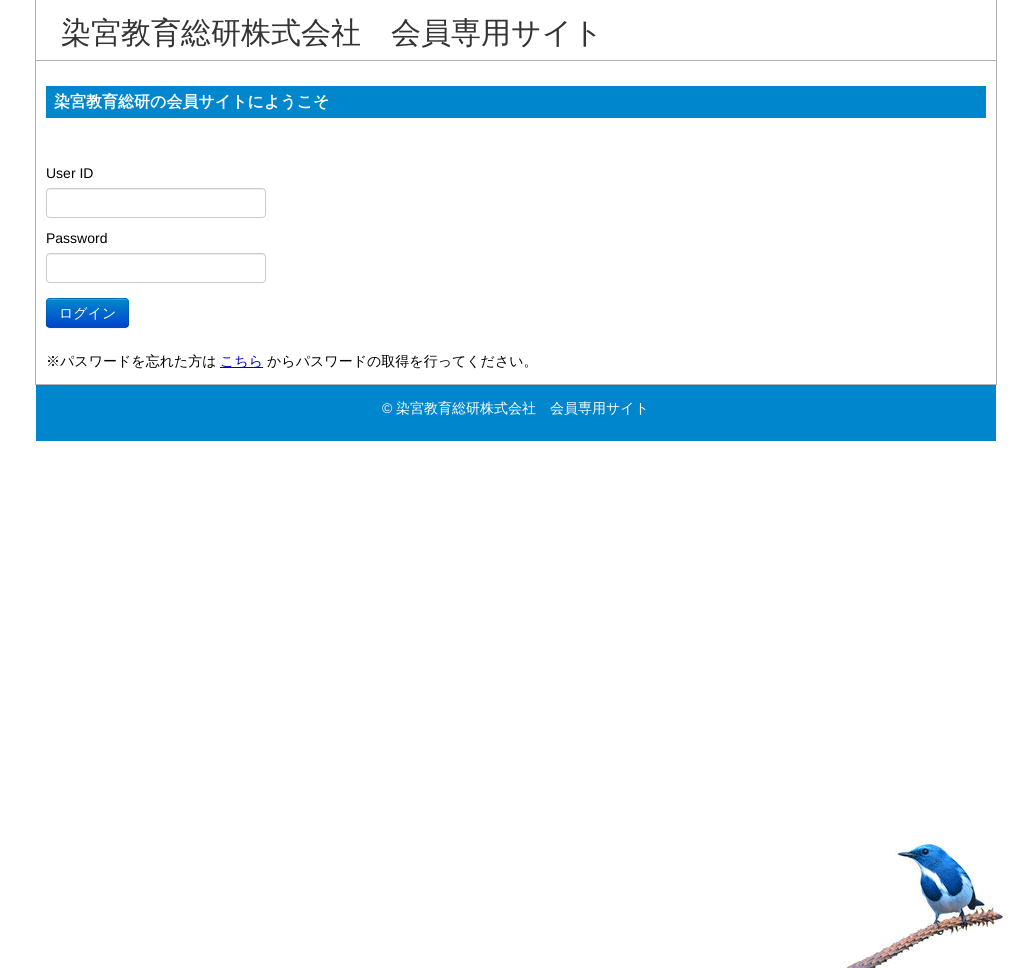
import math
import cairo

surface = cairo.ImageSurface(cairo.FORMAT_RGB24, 1031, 968)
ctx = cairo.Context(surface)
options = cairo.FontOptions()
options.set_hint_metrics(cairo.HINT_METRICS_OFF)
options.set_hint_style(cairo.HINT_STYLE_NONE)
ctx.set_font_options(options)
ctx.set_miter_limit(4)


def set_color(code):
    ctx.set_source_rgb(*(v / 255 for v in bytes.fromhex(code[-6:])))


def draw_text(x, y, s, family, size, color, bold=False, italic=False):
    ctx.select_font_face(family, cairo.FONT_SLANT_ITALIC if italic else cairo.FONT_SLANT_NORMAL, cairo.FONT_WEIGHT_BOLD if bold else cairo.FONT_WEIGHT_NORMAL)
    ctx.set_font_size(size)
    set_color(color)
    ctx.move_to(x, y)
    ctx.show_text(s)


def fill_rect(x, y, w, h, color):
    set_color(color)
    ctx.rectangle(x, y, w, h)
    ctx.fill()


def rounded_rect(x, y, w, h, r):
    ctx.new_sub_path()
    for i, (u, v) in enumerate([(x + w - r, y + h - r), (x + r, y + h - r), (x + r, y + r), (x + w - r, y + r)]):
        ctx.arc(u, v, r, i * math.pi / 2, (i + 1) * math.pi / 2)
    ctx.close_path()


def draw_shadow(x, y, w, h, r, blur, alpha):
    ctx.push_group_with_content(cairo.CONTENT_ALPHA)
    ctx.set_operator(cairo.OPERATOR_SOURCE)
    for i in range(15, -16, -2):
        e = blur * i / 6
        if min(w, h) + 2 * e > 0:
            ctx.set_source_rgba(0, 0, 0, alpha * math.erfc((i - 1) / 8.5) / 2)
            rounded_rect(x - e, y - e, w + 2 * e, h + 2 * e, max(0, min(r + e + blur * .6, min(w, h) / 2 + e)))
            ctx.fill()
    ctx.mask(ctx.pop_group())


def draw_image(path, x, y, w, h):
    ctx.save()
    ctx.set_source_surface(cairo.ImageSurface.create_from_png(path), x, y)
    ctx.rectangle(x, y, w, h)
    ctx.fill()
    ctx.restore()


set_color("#ffffff")
ctx.paint()
draw_image("assets/img1.png", 845, 840, 162, 128)
fill_rect(996, 0, 1, 60, "#b3b3b3")
fill_rect(35, 0, 1, 60, "#b3b3b3")
draw_text(61, 43, "染宮教育総研株式会社　会員専用サイト", "WenQuanYi Zen Hei Medium", 30, "#333333")
ctx.rectangle(35.5, 60.5, 961, 324)
set_color("#b3b3b3")
ctx.set_line_width(1)
ctx.stroke()
fill_rect(46, 86, 940, 32, "#0086cc")
draw_text(54, 107, "染宮教育総研の会員サイトにようこそ", "WenQuanYi Zen Hei", 16, "#ffffff", bold=True)
draw_text(46, 178, "User ID", "Liberation Sans", 14, "#000000")
set_color("#ececec")
ctx.new_path()
ctx.move_to(50, 190)
ctx.line_to(262, 190)
ctx.curve_to(264, 190, 265, 191, 265, 193)
ctx.line_to(265, 192)
ctx.curve_to(265, 190, 264, 189, 262, 189)
ctx.line_to(50, 189)
ctx.curve_to(48, 189, 47, 190, 47, 192)
ctx.line_to(47, 193)
ctx.curve_to(47, 191, 48, 190, 50, 190)
ctx.close_path()
ctx.fill()
rounded_rect(46.5, 188.5, 219, 29, 3.5)
set_color("#cccccc")
ctx.stroke()
draw_text(46, 243, "Password", "Liberation Sans", 14, "#000000")
set_color("#ececec")
ctx.new_path()
ctx.move_to(50, 255)
ctx.line_to(262, 255)
ctx.curve_to(264, 255, 265, 256, 265, 258)
ctx.line_to(265, 257)
ctx.curve_to(265, 255, 264, 254, 262, 254)
ctx.line_to(50, 254)
ctx.curve_to(48, 254, 47, 255, 47, 257)
ctx.line_to(47, 258)
ctx.curve_to(47, 256, 48, 255, 50, 255)
ctx.close_path()
ctx.fill()
rounded_rect(46.5, 253.5, 219, 29, 3.5)
set_color("#cccccc")
ctx.stroke()
set_color("#000000")
draw_shadow(46, 299, 83, 30, 4, 1, 0.05)
set_color("#006dcc")
rounded_rect(46, 298, 83, 30, 4)
ctx.fill()
ctx.save()
rounded_rect(46, 298, 83, 30, 4)
ctx.clip()
gradient = cairo.LinearGradient(88, 299, 88, 327)
gradient.add_color_stop_rgba(0, 0, 0.533, 0.8, 1)
gradient.add_color_stop_rgba(1, 0, 0.267, 0.8, 1)
ctx.set_source(gradient)
ctx.rectangle(46, 299, 83, 28)
ctx.fill()
ctx.restore()
ctx.set_source_rgba(1, 1, 1, 0.2)
ctx.new_path()
ctx.move_to(50, 300)
ctx.line_to(125, 300)
ctx.curve_to(127, 300, 128, 301, 128, 303)
ctx.curve_to(128, 296, 116, 299, 112, 299)
ctx.line_to(62, 299)
ctx.curve_to(59, 299, 47, 296, 47, 303)
ctx.curve_to(47, 301, 48, 300, 50, 300)
ctx.close_path()
ctx.fill()
ctx.new_path()
ctx.move_to(127.5, 326.5)
ctx.line_to(125.5, 327.5)
ctx.line_to(49.5, 327.5)
ctx.line_to(47.5, 326.5)
ctx.set_source_rgba(0, 0, 0, 0.25)
ctx.stroke()
ctx.new_path()
ctx.move_to(47.5, 326.5)
ctx.curve_to(45.5, 324.5, 46.5, 316, 46.5, 313)
ctx.curve_to(46.5, 296, 44.5, 298.5, 62.5, 298.5)
ctx.line_to(112.5, 298.5)
ctx.curve_to(130.5, 298.5, 128.5, 296, 128.5, 313)
ctx.curve_to(128.5, 316, 129.5, 324.5, 127.5, 326.5)
ctx.set_source_rgba(0, 0, 0, 0.1)
ctx.stroke()
draw_text(59, 318, "ログイン", "WenQuanYi Zen Hei Medium", 14, "#ffffff")
draw_text(46, 366, "※パスワードを忘れた方は", "WenQuanYi Zen Hei Medium", 14, "#000000")
fill_rect(220, 367, 43, 1, "#0000cc")
draw_text(220, 366, "こちら", "WenQuanYi Zen Hei Medium", 14, "#0000cc")
draw_text(267, 366, "からパスワードの取得を行ってください。", "WenQuanYi Zen Hei Medium", 14, "#000000")
fill_rect(36, 385, 960, 56, "#0086cc")
draw_text(382, 413, "©", "Liberation Sans", 14, "#ffffff")
draw_text(396, 413, "染宮教育総研株式会社　会員専用サイト", "WenQuanYi Zen Hei Medium", 14, "#ffffff")
surface.write_to_png("output.png")
